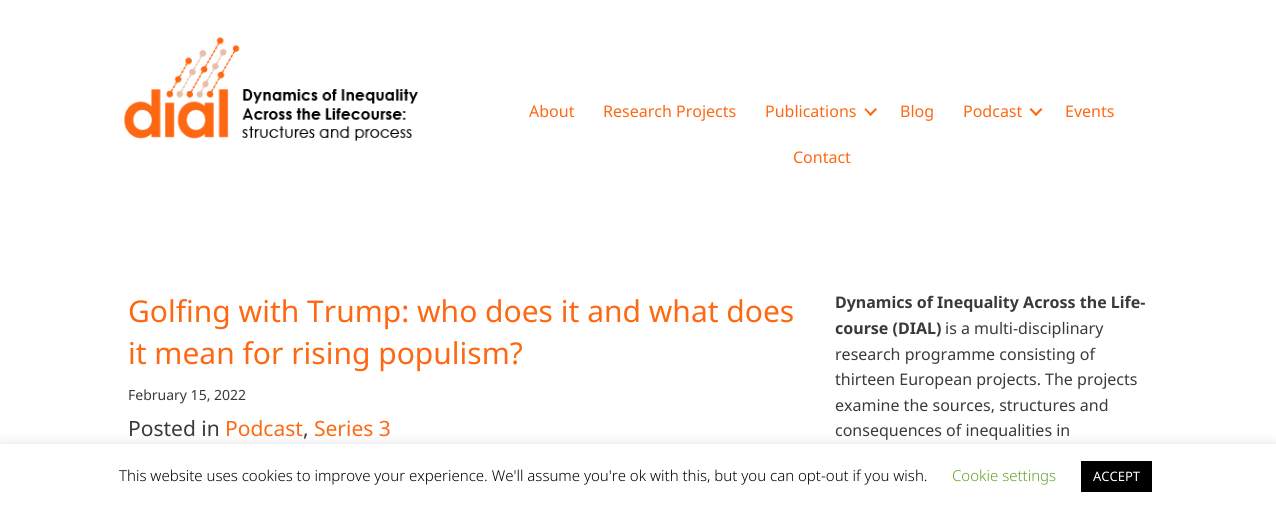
import math
import cairo

surface = cairo.ImageSurface(cairo.FORMAT_RGB24, 1276, 509)
ctx = cairo.Context(surface)
options = cairo.FontOptions()
options.set_hint_metrics(cairo.HINT_METRICS_OFF)
options.set_hint_style(cairo.HINT_STYLE_NONE)
ctx.set_font_options(options)
ctx.set_miter_limit(4)


def set_color(code):
    ctx.set_source_rgb(*(v / 255 for v in bytes.fromhex(code[-6:])))


def draw_text(x, y, s, family, size, color, bold=False, italic=False):
    ctx.select_font_face(family, cairo.FONT_SLANT_ITALIC if italic else cairo.FONT_SLANT_NORMAL, cairo.FONT_WEIGHT_BOLD if bold else cairo.FONT_WEIGHT_NORMAL)
    ctx.set_font_size(size)
    set_color(color)
    ctx.move_to(x, y)
    ctx.show_text(s)


def fill_rect(x, y, w, h, color):
    set_color(color)
    ctx.rectangle(x, y, w, h)
    ctx.fill()


def rounded_rect(x, y, w, h, r):
    ctx.new_sub_path()
    for i, (u, v) in enumerate([(x + w - r, y + h - r), (x + r, y + h - r), (x + r, y + r), (x + w - r, y + r)]):
        ctx.arc(u, v, r, i * math.pi / 2, (i + 1) * math.pi / 2)
    ctx.close_path()


def draw_shadow(x, y, w, h, r, blur, alpha):
    ctx.push_group_with_content(cairo.CONTENT_ALPHA)
    ctx.set_operator(cairo.OPERATOR_SOURCE)
    for i in range(15, -16, -2):
        e = blur * i / 6
        if min(w, h) + 2 * e > 0:
            ctx.set_source_rgba(0, 0, 0, alpha * math.erfc((i - 1) / 8.5) / 2)
            rounded_rect(x - e, y - e, w + 2 * e, h + 2 * e, max(0, min(r + e + blur * .6, min(w, h) / 2 + e)))
            ctx.fill()
    ctx.mask(ctx.pop_group())


def draw_image(path, x, y, w, h):
    ctx.save()
    ctx.set_source_surface(cairo.ImageSurface.create_from_png(path), x, y)
    ctx.rectangle(x, y, w, h)
    ctx.fill()
    ctx.restore()


set_color("#ffffff")
ctx.paint()
draw_image("assets/img1.png", 124, 37, 294, 104)
draw_text(529, 117, "About", "Noto Sans", 16, "#ff6812")
draw_text(603, 117, "Research Projects", "Noto Sans", 16, "#ff6812")
draw_text(765, 117, "Publications", "Noto Sans", 16, "#ff6812")
ctx.new_path()
ctx.move_to(875.5, 108)
ctx.line_to(877, 109.5)
ctx.line_to(870.5, 116)
ctx.line_to(869, 114.5)
ctx.close_path()
ctx.fill()
ctx.new_path()
ctx.move_to(865.5, 108)
ctx.line_to(872, 114.5)
ctx.line_to(870.5, 116)
ctx.line_to(864.5, 109.5)
ctx.close_path()
ctx.fill()
draw_text(900, 117, "Blog", "Noto Sans", 16, "#ff6812")
draw_text(963, 117, "Podcast", "Noto Sans", 16, "#ff6812")
ctx.new_path()
ctx.move_to(1041, 108)
ctx.line_to(1042.5, 109.5)
ctx.line_to(1036, 116)
ctx.line_to(1034.5, 114.5)
ctx.close_path()
ctx.fill()
ctx.new_path()
ctx.move_to(1031, 108)
ctx.line_to(1037.5, 114.5)
ctx.line_to(1036, 116)
ctx.line_to(1029.5, 109.5)
ctx.close_path()
ctx.fill()
draw_text(1065, 117, "Events", "Noto Sans", 16, "#ff6812")
draw_text(793, 163, "Contact", "Noto Sans", 16, "#ff6812")
draw_text(128, 322, "Golfing with Trump: who does it and what does", "Noto Sans", 30, "#ff6812")
draw_text(128, 364, "it mean for rising populism?", "Noto Sans", 30, "#ff6812")
draw_text(128, 400, "February 15, 2022", "Noto Sans", 14, "#3a3a3a")
draw_text(128, 436, "Posted in", "Noto Sans", 21, "#3a3a3a")
draw_text(225, 436, "Podcast", "Noto Sans", 21, "#ff6812")
draw_text(303, 436, ",", "Noto Sans", 21, "#3a3a3a")
draw_text(314, 436, "Series 3", "Noto Sans", 21, "#ff6812")
draw_text(835, 308, "Dynamics of Inequality Across the Life-", "Noto Sans", 16, "#3a3a3a", bold=True)
draw_text(835, 334, "course (DIAL)", "Noto Sans", 16, "#3a3a3a", bold=True)
draw_text(945, 334, "is a multi-disciplinary", "Noto Sans", 16, "#3a3a3a")
draw_text(835, 360, "research programme consisting of", "Noto Sans", 16, "#3a3a3a")
draw_text(835, 385, "thirteen European projects. The projects", "Noto Sans", 16, "#3a3a3a")
draw_text(835, 411, "examine the sources, structures and", "Noto Sans", 16, "#3a3a3a")
draw_text(835, 436, "consequences of inequalities in", "Noto Sans", 16, "#3a3a3a")
set_color("#acabab")
draw_shadow(0, 443, 1276, 65, 0, 5, 0.3)
fill_rect(0, 444, 1276, 65, "#ffffff")
draw_text(119, 481, "This website uses cookies to improve your experience. We'll assume you're ok with this, but you can opt-out if you wish.", "Noto Sans Light", 15, "#000000")
draw_text(952, 481, "Cookie settings", "Noto Sans Light", 15, "#62a329")
fill_rect(1081, 461, 71, 31, "#000000")
draw_text(1093, 481, "ACCEPT", "Noto Sans", 13, "#ffffff")
surface.write_to_png("output.png")
